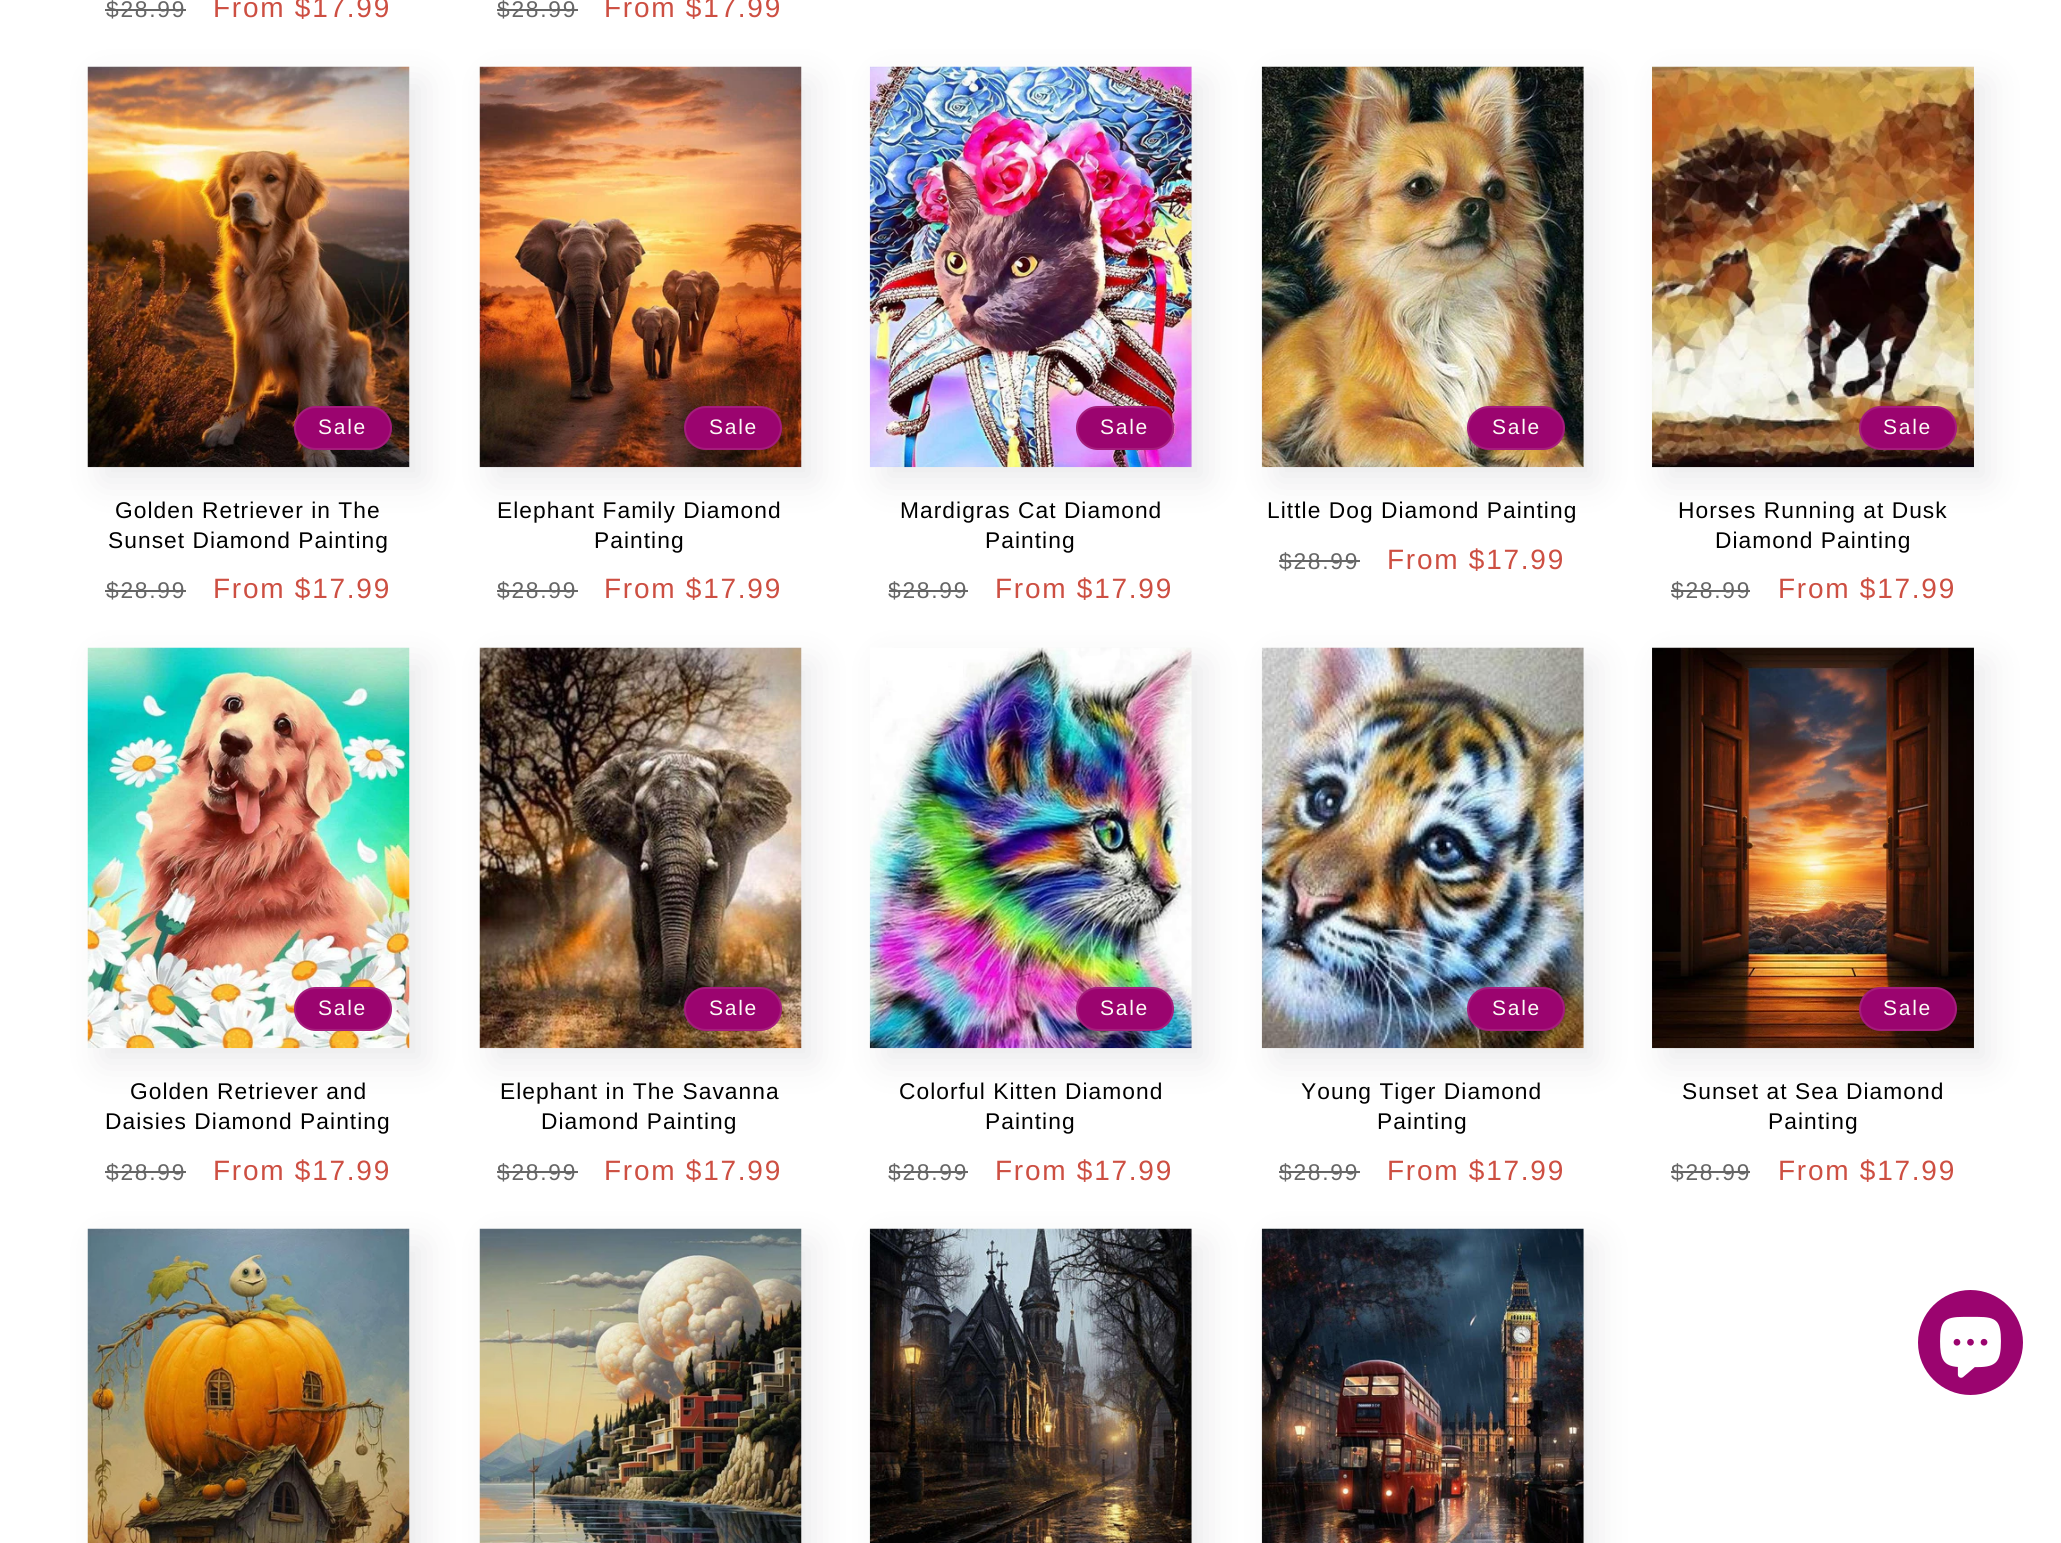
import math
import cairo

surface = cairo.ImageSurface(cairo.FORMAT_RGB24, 2061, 1543)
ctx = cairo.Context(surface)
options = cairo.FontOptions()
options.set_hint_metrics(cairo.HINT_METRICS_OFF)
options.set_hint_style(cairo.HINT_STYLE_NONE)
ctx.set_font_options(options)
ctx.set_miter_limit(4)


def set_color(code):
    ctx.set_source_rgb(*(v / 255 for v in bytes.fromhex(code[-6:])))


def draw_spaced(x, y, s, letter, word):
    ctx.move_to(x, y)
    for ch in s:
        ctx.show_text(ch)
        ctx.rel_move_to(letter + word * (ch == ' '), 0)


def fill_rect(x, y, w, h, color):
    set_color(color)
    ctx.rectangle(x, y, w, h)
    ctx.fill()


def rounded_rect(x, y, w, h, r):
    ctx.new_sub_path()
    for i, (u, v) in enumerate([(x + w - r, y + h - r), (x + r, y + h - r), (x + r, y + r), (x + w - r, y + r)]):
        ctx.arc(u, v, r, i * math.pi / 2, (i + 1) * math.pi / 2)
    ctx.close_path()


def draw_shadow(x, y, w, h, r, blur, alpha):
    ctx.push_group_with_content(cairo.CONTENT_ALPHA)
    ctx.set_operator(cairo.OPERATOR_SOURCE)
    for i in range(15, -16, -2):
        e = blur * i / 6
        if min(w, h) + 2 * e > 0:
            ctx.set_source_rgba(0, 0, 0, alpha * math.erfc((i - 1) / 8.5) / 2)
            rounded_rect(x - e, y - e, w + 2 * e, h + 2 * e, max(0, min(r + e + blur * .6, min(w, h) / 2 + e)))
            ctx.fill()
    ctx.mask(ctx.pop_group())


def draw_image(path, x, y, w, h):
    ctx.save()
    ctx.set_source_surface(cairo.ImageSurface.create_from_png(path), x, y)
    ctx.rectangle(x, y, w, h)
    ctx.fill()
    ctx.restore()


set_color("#ffffff")
ctx.paint()
ctx.select_font_face("Liberation Sans")
ctx.set_font_size(22.75)
set_color("#666666")
draw_spaced(106, 17, "$28.99", 1.75, 0)
fill_rect(105, 9, 81, 2, "#666666")
ctx.set_font_size(28)
set_color("#cd4f42")
draw_spaced(213, 17, "From $17.99", 1.75, 0)
ctx.set_font_size(22.75)
set_color("#666666")
draw_spaced(497, 17, "$28.99", 1.75, 0)
fill_rect(497, 9, 81, 2, "#666666")
ctx.set_font_size(28)
set_color("#cd4f42")
draw_spaced(604, 17, "From $17.99", 1.75, 0)
set_color("#2e2a39")
draw_shadow(102, 81, 322, 400, 0, 17.5, 0.1)
draw_image("assets/img1.png", 87, 66, 323, 402)
set_color("#9b046f")
rounded_rect(294, 406, 98, 44, 22)
ctx.fill()
rounded_rect(295, 407, 96, 42, 21)
ctx.set_source_rgba(0.992, 0.984, 0.969, 0.1)
ctx.stroke()
ctx.set_font_size(21)
set_color("#fdfbf7")
draw_spaced(318, 434, "Sale", 1.75, 0)
ctx.set_font_size(22.75)
set_color("#000000")
draw_spaced(115, 518, "Golden Retriever in The", 1.05, 0)
draw_spaced(108, 548, "Sunset Diamond Painting", 1.05, 0)
set_color("#666666")
draw_spaced(106, 598, "$28.99", 1.75, 0)
fill_rect(105, 590, 81, 2, "#666666")
ctx.set_font_size(28)
set_color("#cd4f42")
draw_spaced(213, 598, "From $17.99", 1.75, 0)
set_color("#2e2a39")
draw_shadow(494, 81, 320, 400, 0, 17.5, 0.1)
draw_image("assets/img2.png", 479, 66, 323, 402)
set_color("#9b046f")
rounded_rect(684, 406, 98, 44, 22)
ctx.fill()
rounded_rect(685, 407, 96, 42, 21)
ctx.set_source_rgba(0.992, 0.984, 0.969, 0.1)
ctx.stroke()
ctx.set_font_size(21)
set_color("#fdfbf7")
draw_spaced(709, 434, "Sale", 1.75, 0)
ctx.set_font_size(22.75)
set_color("#000000")
draw_spaced(497, 518, "Elephant Family Diamond", 1.05, 0)
draw_spaced(594, 548, "Painting", 1.05, 0)
set_color("#666666")
draw_spaced(497, 598, "$28.99", 1.75, 0)
fill_rect(497, 590, 81, 2, "#666666")
ctx.set_font_size(28)
set_color("#cd4f42")
draw_spaced(604, 598, "From $17.99", 1.75, 0)
set_color("#2e2a39")
draw_shadow(884, 81, 322, 400, 0, 17.5, 0.1)
draw_image("assets/img3.png", 869, 66, 323, 402)
set_color("#9b046f")
rounded_rect(1076, 406, 98, 44, 22)
ctx.fill()
rounded_rect(1077, 407, 96, 42, 21)
ctx.set_source_rgba(0.992, 0.984, 0.969, 0.1)
ctx.stroke()
ctx.set_font_size(21)
set_color("#fdfbf7")
draw_spaced(1100, 434, "Sale", 1.75, 0)
ctx.set_font_size(22.75)
set_color("#000000")
draw_spaced(900, 518, "Mardigras Cat Diamond", 1.05, 0)
draw_spaced(985, 548, "Painting", 1.05, 0)
set_color("#666666")
draw_spaced(888, 598, "$28.99", 1.75, 0)
fill_rect(889, 590, 79, 2, "#666666")
ctx.set_font_size(28)
set_color("#cd4f42")
draw_spaced(995, 598, "From $17.99", 1.75, 0)
set_color("#2e2a39")
draw_shadow(1276, 81, 320, 400, 0, 17.5, 0.1)
draw_image("assets/img4.png", 1261, 66, 323, 402)
set_color("#9b046f")
rounded_rect(1467, 406, 98, 44, 22)
ctx.fill()
rounded_rect(1468, 407, 96, 42, 21)
ctx.set_source_rgba(0.992, 0.984, 0.969, 0.1)
ctx.stroke()
ctx.set_font_size(21)
set_color("#fdfbf7")
draw_spaced(1492, 434, "Sale", 1.75, 0)
ctx.set_font_size(22.75)
set_color("#000000")
draw_spaced(1267, 518, "Little Dog Diamond Painting", 1.05, 0)
set_color("#666666")
draw_spaced(1279, 569, "$28.99", 1.75, 0)
fill_rect(1279, 560, 81, 2, "#666666")
ctx.set_font_size(28)
set_color("#cd4f42")
draw_spaced(1387, 569, "From $17.99", 1.75, 0)
set_color("#2e2a39")
draw_shadow(1666, 81, 322, 400, 0, 17.5, 0.1)
draw_image("assets/img5.png", 1652, 66, 322, 402)
set_color("#9b046f")
rounded_rect(1859, 406, 98, 44, 22)
ctx.fill()
rounded_rect(1860, 407, 96, 42, 21)
ctx.set_source_rgba(0.992, 0.984, 0.969, 0.1)
ctx.stroke()
ctx.set_font_size(21)
set_color("#fdfbf7")
draw_spaced(1883, 434, "Sale", 1.75, 0)
ctx.set_font_size(22.75)
set_color("#000000")
draw_spaced(1678, 518, "Horses Running at Dusk", 1.05, 0)
draw_spaced(1715, 548, "Diamond Painting", 1.05, 0)
set_color("#666666")
draw_spaced(1671, 598, "$28.99", 1.75, 0)
fill_rect(1671, 590, 79, 2, "#666666")
ctx.set_font_size(28)
set_color("#cd4f42")
draw_spaced(1778, 598, "From $17.99", 1.75, 0)
set_color("#2e2a39")
draw_shadow(102, 662, 322, 400, 0, 17.5, 0.1)
draw_image("assets/img6.png", 87, 647, 323, 402)
set_color("#9b046f")
rounded_rect(294, 987, 98, 44, 22)
ctx.fill()
rounded_rect(295, 988, 96, 42, 21)
ctx.set_source_rgba(0.992, 0.984, 0.969, 0.1)
ctx.stroke()
ctx.set_font_size(21)
set_color("#fdfbf7")
draw_spaced(318, 1015, "Sale", 1.75, 0)
ctx.set_font_size(22.75)
set_color("#000000")
draw_spaced(130, 1099, "Golden Retriever and", 1.05, 0)
draw_spaced(105, 1129, "Daisies Diamond Painting", 1.05, 0)
set_color("#666666")
draw_spaced(106, 1180, "$28.99", 1.75, 0)
fill_rect(105, 1171, 81, 2, "#666666")
ctx.set_font_size(28)
set_color("#cd4f42")
draw_spaced(213, 1180, "From $17.99", 1.75, 0)
set_color("#2e2a39")
draw_shadow(494, 662, 320, 400, 0, 17.5, 0.1)
draw_image("assets/img7.png", 479, 647, 323, 402)
set_color("#9b046f")
rounded_rect(684, 987, 98, 44, 22)
ctx.fill()
rounded_rect(685, 988, 96, 42, 21)
ctx.set_source_rgba(0.992, 0.984, 0.969, 0.1)
ctx.stroke()
ctx.set_font_size(21)
set_color("#fdfbf7")
draw_spaced(709, 1015, "Sale", 1.75, 0)
ctx.set_font_size(22.75)
set_color("#000000")
draw_spaced(500, 1099, "Elephant in The Savanna", 1.05, 0)
draw_spaced(541, 1129, "Diamond Painting", 1.05, 0)
set_color("#666666")
draw_spaced(497, 1180, "$28.99", 1.75, 0)
fill_rect(497, 1171, 81, 2, "#666666")
ctx.set_font_size(28)
set_color("#cd4f42")
draw_spaced(604, 1180, "From $17.99", 1.75, 0)
set_color("#2e2a39")
draw_shadow(884, 662, 322, 400, 0, 17.5, 0.1)
draw_image("assets/img8.png", 869, 647, 323, 402)
set_color("#9b046f")
rounded_rect(1076, 987, 98, 44, 22)
ctx.fill()
rounded_rect(1077, 988, 96, 42, 21)
ctx.set_source_rgba(0.992, 0.984, 0.969, 0.1)
ctx.stroke()
ctx.set_font_size(21)
set_color("#fdfbf7")
draw_spaced(1100, 1015, "Sale", 1.75, 0)
ctx.set_font_size(22.75)
set_color("#000000")
draw_spaced(899, 1099, "Colorful Kitten Diamond", 1.05, 0)
draw_spaced(985, 1129, "Painting", 1.05, 0)
set_color("#666666")
draw_spaced(888, 1180, "$28.99", 1.75, 0)
fill_rect(889, 1171, 79, 2, "#666666")
ctx.set_font_size(28)
set_color("#cd4f42")
draw_spaced(995, 1180, "From $17.99", 1.75, 0)
set_color("#2e2a39")
draw_shadow(1276, 662, 320, 400, 0, 17.5, 0.1)
draw_image("assets/img9.png", 1261, 647, 323, 402)
set_color("#9b046f")
rounded_rect(1467, 987, 98, 44, 22)
ctx.fill()
rounded_rect(1468, 988, 96, 42, 21)
ctx.set_source_rgba(0.992, 0.984, 0.969, 0.1)
ctx.stroke()
ctx.set_font_size(21)
set_color("#fdfbf7")
draw_spaced(1492, 1015, "Sale", 1.75, 0)
ctx.set_font_size(22.75)
set_color("#000000")
draw_spaced(1301, 1099, "Young Tiger Diamond", 1.05, 0)
draw_spaced(1377, 1129, "Painting", 1.05, 0)
set_color("#666666")
draw_spaced(1279, 1180, "$28.99", 1.75, 0)
fill_rect(1279, 1171, 81, 2, "#666666")
ctx.set_font_size(28)
set_color("#cd4f42")
draw_spaced(1387, 1180, "From $17.99", 1.75, 0)
set_color("#2e2a39")
draw_shadow(1666, 662, 322, 400, 0, 17.5, 0.1)
draw_image("assets/img10.png", 1652, 647, 322, 402)
set_color("#9b046f")
rounded_rect(1859, 987, 98, 44, 22)
ctx.fill()
rounded_rect(1860, 988, 96, 42, 21)
ctx.set_source_rgba(0.992, 0.984, 0.969, 0.1)
ctx.stroke()
ctx.set_font_size(21)
set_color("#fdfbf7")
draw_spaced(1883, 1015, "Sale", 1.75, 0)
ctx.set_font_size(22.75)
set_color("#000000")
draw_spaced(1682, 1099, "Sunset at Sea Diamond", 1.05, 0)
draw_spaced(1768, 1129, "Painting", 1.05, 0)
set_color("#666666")
draw_spaced(1671, 1180, "$28.99", 1.75, 0)
fill_rect(1671, 1171, 79, 2, "#666666")
ctx.set_font_size(28)
set_color("#cd4f42")
draw_spaced(1778, 1180, "From $17.99", 1.75, 0)
set_color("#2e2a39")
draw_shadow(102, 1243, 322, 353, 0, 17.5, 0.1)
draw_image("assets/img11.png", 87, 1228, 323, 315)
draw_shadow(494, 1243, 320, 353, 0, 17.5, 0.1)
draw_image("assets/img12.png", 479, 1228, 323, 315)
draw_shadow(884, 1243, 322, 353, 0, 17.5, 0.1)
draw_image("assets/img13.png", 869, 1228, 323, 315)
draw_shadow(1276, 1243, 320, 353, 0, 17.5, 0.1)
draw_image("assets/img14.png", 1261, 1228, 323, 315)
set_color("#9b046f")
ctx.arc(1970.5, 1342.5, 52.5, 0, 2 * math.pi)
ctx.fill()
draw_image("assets/img15.png", 1940, 1316, 61, 62)
surface.write_to_png("output.png")
